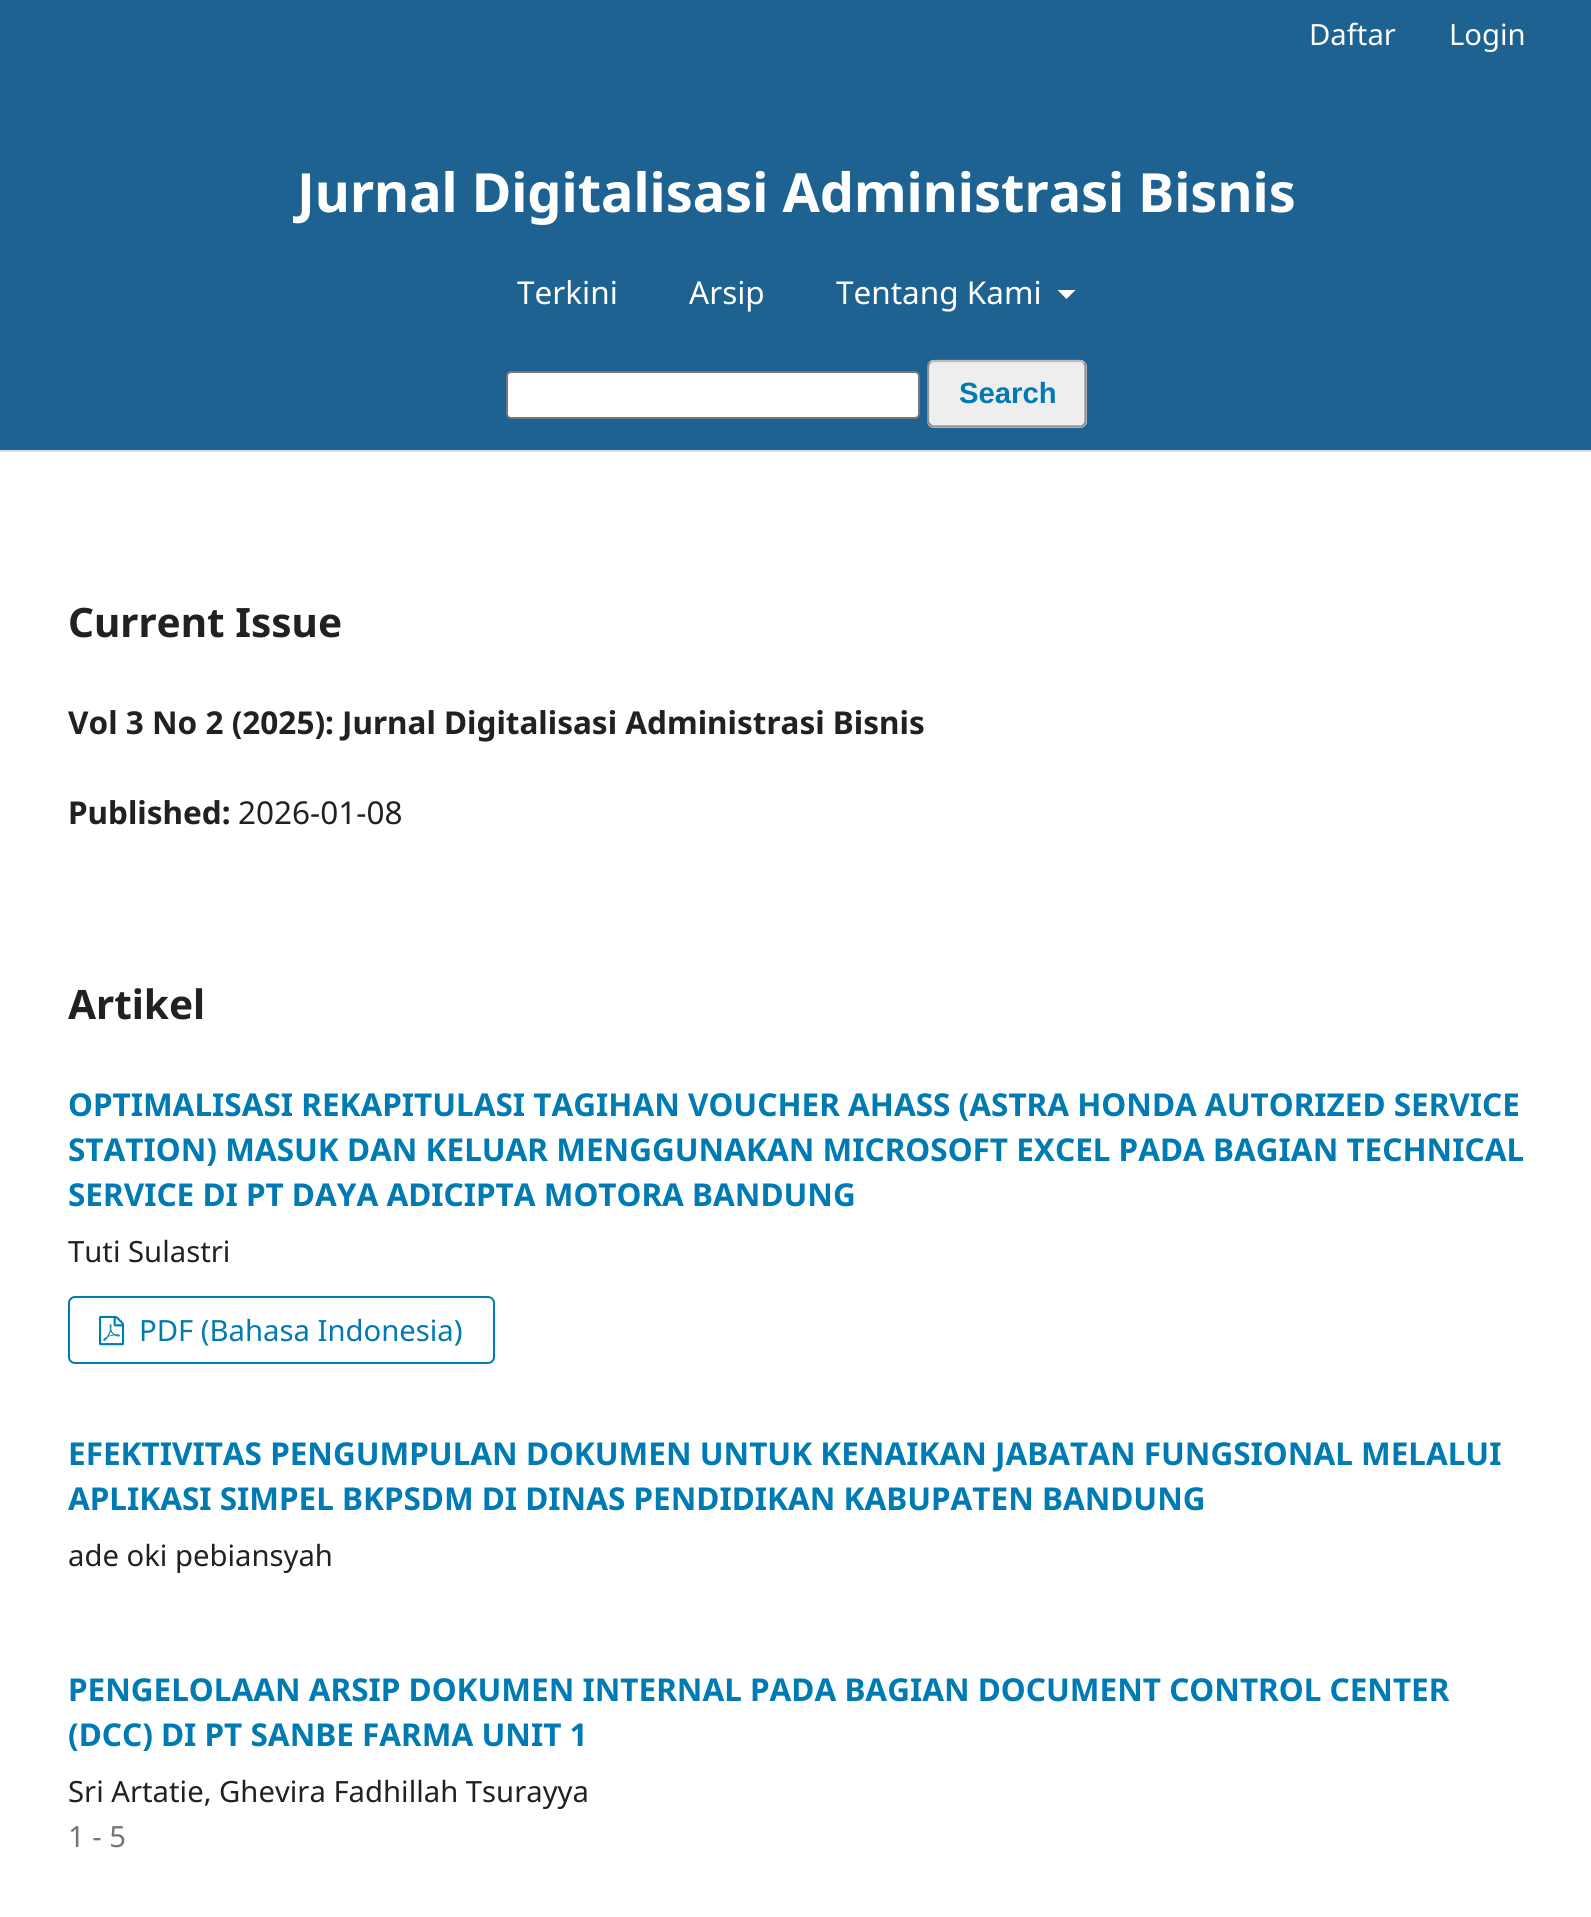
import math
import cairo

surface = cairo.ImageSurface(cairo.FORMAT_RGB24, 1591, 1917)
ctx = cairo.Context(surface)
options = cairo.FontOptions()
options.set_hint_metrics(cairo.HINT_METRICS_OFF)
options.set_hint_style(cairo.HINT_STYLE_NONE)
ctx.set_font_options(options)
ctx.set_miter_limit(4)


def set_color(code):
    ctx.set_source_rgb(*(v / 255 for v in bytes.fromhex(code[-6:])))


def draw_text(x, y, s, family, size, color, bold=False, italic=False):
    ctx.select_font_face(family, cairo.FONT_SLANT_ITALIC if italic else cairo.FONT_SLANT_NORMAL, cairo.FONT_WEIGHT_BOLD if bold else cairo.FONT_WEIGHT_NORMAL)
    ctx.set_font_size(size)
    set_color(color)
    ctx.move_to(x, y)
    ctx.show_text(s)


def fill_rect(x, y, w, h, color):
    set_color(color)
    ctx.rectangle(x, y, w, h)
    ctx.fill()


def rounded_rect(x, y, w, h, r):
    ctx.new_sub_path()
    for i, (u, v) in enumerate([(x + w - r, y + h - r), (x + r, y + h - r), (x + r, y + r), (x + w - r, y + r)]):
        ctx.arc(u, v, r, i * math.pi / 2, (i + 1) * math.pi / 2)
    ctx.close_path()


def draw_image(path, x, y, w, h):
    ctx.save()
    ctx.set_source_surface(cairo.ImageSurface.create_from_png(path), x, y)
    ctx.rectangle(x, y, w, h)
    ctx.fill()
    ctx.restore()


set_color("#ffffff")
ctx.paint()
fill_rect(0, 0, 1591, 450, "#1e6292")
fill_rect(0, 450, 1591, 2, "#dddddd")
draw_text(1309, 45, "Daftar", "Noto Sans", 29.25, "#ffffff")
draw_text(1449, 45, "Login", "Noto Sans", 29.25, "#ffffff")
draw_text(297, 212, "Jurnal Digitalisasi Administrasi Bisnis", "Noto Sans", 54, "#ffffff", bold=True)
draw_text(517, 304, "Terkini", "Noto Sans", 31.5, "#ffffff")
draw_text(689, 304, "Arsip", "Noto Sans", 31.5, "#ffffff")
draw_text(836, 304, "Tentang Kami", "Noto Sans", 31.5, "#ffffff")
ctx.new_path()
ctx.move_to(1057.5, 290)
ctx.line_to(1075.5, 290)
ctx.line_to(1066.5, 299)
ctx.close_path()
ctx.fill()
rounded_rect(507, 372, 412, 46, 4)
ctx.fill_preserve()
set_color("#767676")
ctx.stroke()
set_color("#eeeeee")
rounded_rect(927, 360, 160, 68, 7)
ctx.fill()
ctx.new_path()
ctx.move_to(930, 363)
ctx.curve_to(931, 361.5, 932.5, 361, 934, 361)
ctx.line_to(1080, 361)
ctx.curve_to(1081.5, 361, 1083, 361.5, 1084, 363)
set_color("#bbbbbb")
ctx.set_line_width(2.2)
ctx.stroke()
ctx.new_path()
ctx.move_to(1084, 363)
ctx.curve_to(1085, 364, 1085.5, 365.5, 1085.5, 367)
ctx.line_to(1085.5, 421)
ctx.curve_to(1085.5, 422, 1085, 423.5, 1084, 424.5)
ctx.curve_to(1083, 426, 1081.5, 426.5, 1080, 426.5)
ctx.line_to(934, 426.5)
ctx.curve_to(932.5, 426.5, 931, 426, 930, 424.5)
ctx.curve_to(928.5, 423.5, 928, 422, 928, 421)
ctx.line_to(928, 367)
ctx.curve_to(928, 365.5, 928.5, 364, 930, 363)
ctx.set_source_rgba(0, 0, 0, 0.4)
ctx.stroke()
draw_text(959, 403, "Search", "Liberation Sans", 29.25, "#007ab2", bold=True)
draw_text(68, 637, "Current Issue", "Noto Sans", 40.5, "#212121", bold=True)
draw_text(68, 734, "Vol 3 No 2 (2025): Jurnal Digitalisasi Administrasi Bisnis", "Noto Sans", 31.5, "#212121", bold=True)
draw_text(68, 824, "Published:", "Noto Sans", 31.5, "#212121", bold=True)
draw_text(238, 824, "2026-01-08", "Noto Sans", 31.5, "#212121")
draw_text(68, 1019, "Artikel", "Noto Sans", 40.5, "#212121", bold=True)
draw_text(68, 1116, "OPTIMALISASI REKAPITULASI TAGIHAN VOUCHER AHASS (ASTRA HONDA AUTORIZED SERVICE", "Noto Sans", 31.5, "#007ab2", bold=True)
draw_text(68, 1161, "STATION) MASUK DAN KELUAR MENGGUNAKAN MICROSOFT EXCEL PADA BAGIAN TECHNICAL", "Noto Sans", 31.5, "#007ab2", bold=True)
draw_text(68, 1206, "SERVICE DI PT DAYA ADICIPTA MOTORA BANDUNG", "Noto Sans", 31.5, "#007ab2", bold=True)
draw_text(68, 1262, "Tuti Sulastri", "Noto Sans", 29.25, "#212121")
rounded_rect(69, 1297, 425, 66, 6)
set_color("#007ab2")
ctx.set_line_width(2)
ctx.stroke()
draw_image("assets/img1.png", 99, 1315, 26, 31)
draw_text(139, 1341, "PDF (Bahasa Indonesia)", "Noto Sans", 29.25, "#007ab2")
draw_text(68, 1465, "EFEKTIVITAS PENGUMPULAN DOKUMEN UNTUK KENAIKAN JABATAN FUNGSIONAL MELALUI", "Noto Sans", 31.5, "#007ab2", bold=True)
draw_text(68, 1510, "APLIKASI SIMPEL BKPSDM DI DINAS PENDIDIKAN KABUPATEN BANDUNG", "Noto Sans", 31.5, "#007ab2", bold=True)
draw_text(68, 1566, "ade oki pebiansyah", "Noto Sans", 29.25, "#212121")
draw_text(68, 1701, "PENGELOLAAN ARSIP DOKUMEN INTERNAL PADA BAGIAN DOCUMENT CONTROL CENTER", "Noto Sans", 31.5, "#007ab2", bold=True)
draw_text(68, 1746, "(DCC) DI PT SANBE FARMA UNIT 1", "Noto Sans", 31.5, "#007ab2", bold=True)
draw_text(68, 1802, "Sri Artatie, Ghevira Fadhillah Tsurayya", "Noto Sans", 29.25, "#212121")
draw_text(68, 1847, "1 - 5", "Noto Sans", 29.25, "#757575")
surface.write_to_png("output.png")
